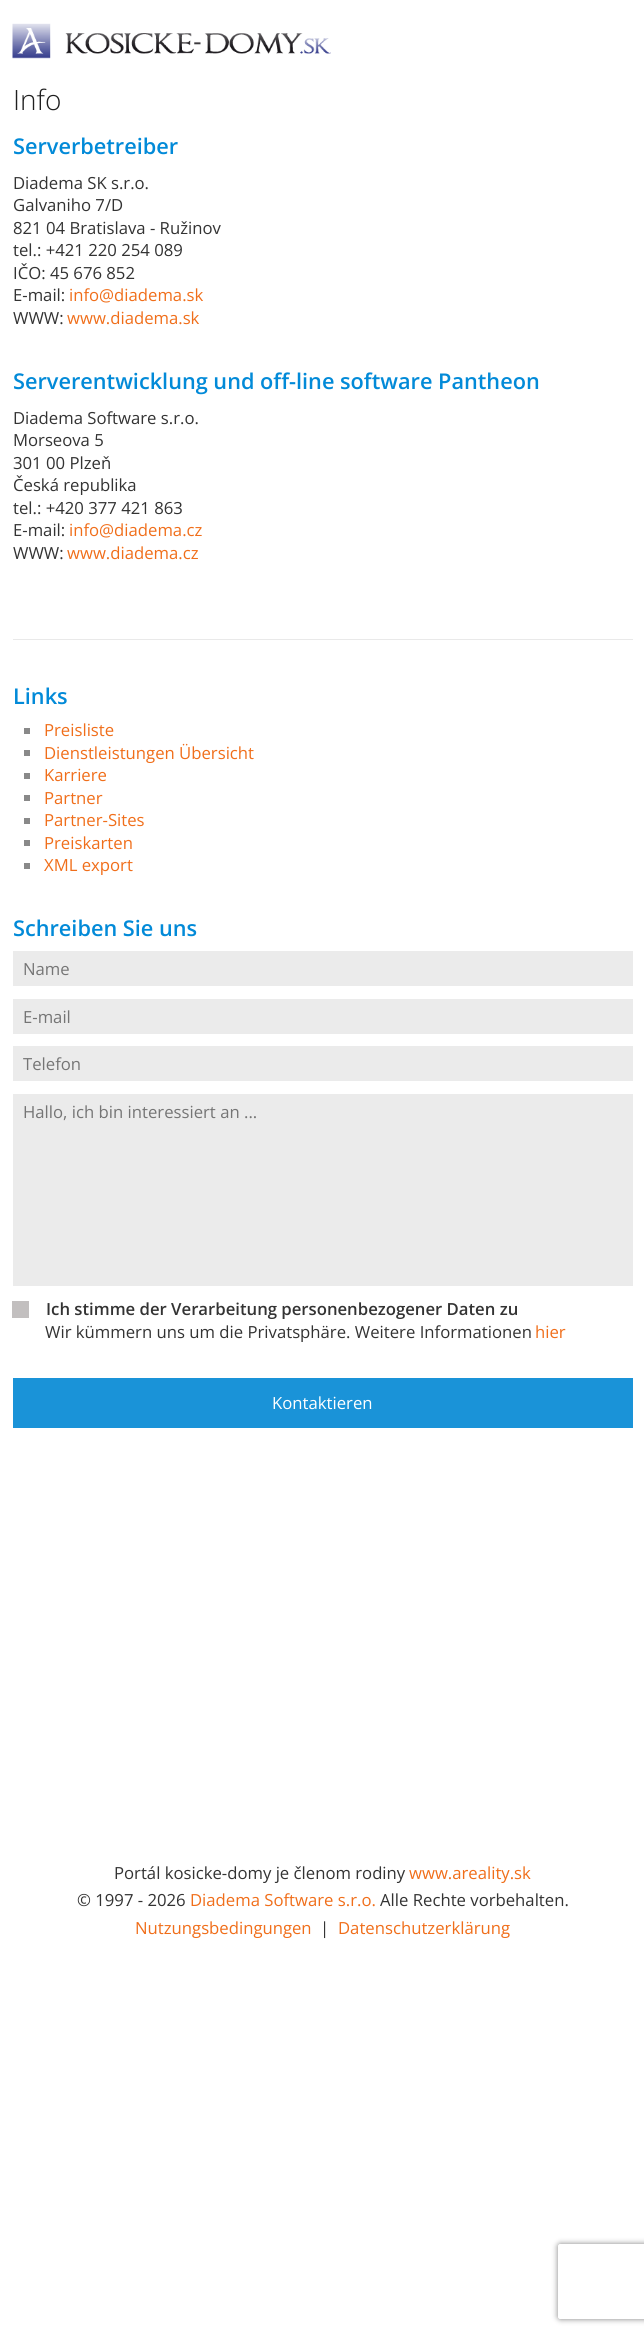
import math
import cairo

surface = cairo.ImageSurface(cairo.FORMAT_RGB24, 644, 2336)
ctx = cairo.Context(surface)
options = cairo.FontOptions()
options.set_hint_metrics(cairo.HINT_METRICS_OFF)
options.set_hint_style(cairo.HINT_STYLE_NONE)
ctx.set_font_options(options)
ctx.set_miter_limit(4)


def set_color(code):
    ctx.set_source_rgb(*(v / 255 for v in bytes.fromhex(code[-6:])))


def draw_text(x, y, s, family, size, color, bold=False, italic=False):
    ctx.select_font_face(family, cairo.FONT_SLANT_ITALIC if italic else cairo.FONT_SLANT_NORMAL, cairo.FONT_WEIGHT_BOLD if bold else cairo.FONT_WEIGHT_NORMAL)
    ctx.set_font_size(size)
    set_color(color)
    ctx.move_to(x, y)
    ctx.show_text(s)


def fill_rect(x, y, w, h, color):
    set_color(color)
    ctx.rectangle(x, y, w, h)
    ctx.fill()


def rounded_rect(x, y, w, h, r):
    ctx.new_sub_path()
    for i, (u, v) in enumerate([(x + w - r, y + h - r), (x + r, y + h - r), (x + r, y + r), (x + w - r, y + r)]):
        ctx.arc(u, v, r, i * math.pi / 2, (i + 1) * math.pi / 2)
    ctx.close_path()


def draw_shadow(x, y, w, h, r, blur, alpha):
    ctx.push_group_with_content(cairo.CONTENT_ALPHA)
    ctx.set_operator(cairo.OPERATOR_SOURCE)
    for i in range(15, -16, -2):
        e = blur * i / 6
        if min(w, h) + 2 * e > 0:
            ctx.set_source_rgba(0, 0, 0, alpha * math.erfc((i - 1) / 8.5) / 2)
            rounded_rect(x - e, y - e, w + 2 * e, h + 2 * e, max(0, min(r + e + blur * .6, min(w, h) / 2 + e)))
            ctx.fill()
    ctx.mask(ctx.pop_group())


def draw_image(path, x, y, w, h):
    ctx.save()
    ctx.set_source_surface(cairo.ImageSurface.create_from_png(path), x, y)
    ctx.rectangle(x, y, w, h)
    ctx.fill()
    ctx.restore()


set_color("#ffffff")
ctx.paint()
draw_image("assets/img1.png", 12, 23, 319, 36)
draw_text(13, 110, "Info", "Open Sans Light", 28, "#1f1f1f")
draw_text(13, 154, "Serverbetreiber", "Open Sans SemiBold", 21.7, "#028ad8")
draw_text(13, 189, "Diadema SK s.r.o.", "Open Sans", 16.7, "#333333")
draw_text(13, 211, "Galvaniho 7/D", "Open Sans", 16.7, "#333333")
draw_text(13, 234, "821 04 Bratislava - Ružinov", "Open Sans", 16.7, "#333333")
draw_text(13, 256, "tel.: +421 220 254 089", "Open Sans", 16.7, "#333333")
draw_text(13, 279, "IČO: 45 676 852", "Open Sans", 16.7, "#333333")
draw_text(13, 301, "E-mail:", "Open Sans", 16.7, "#333333")
draw_text(69, 301, "info@diadema.sk", "Open Sans", 16.7, "#f06e1a")
draw_text(13, 324, "WWW:", "Open Sans", 16.7, "#333333")
draw_text(67, 324, "www.diadema.sk", "Open Sans", 16.7, "#f06e1a")
draw_text(13, 389, "Serverentwicklung und off-line software Pantheon", "Open Sans SemiBold", 21.7, "#028ad8")
draw_text(13, 424, "Diadema Software s.r.o.", "Open Sans", 16.7, "#333333")
draw_text(13, 446, "Morseova 5", "Open Sans", 16.7, "#333333")
draw_text(13, 469, "301 00 Plzeň", "Open Sans", 16.7, "#333333")
draw_text(13, 491, "Česká republika", "Open Sans", 16.7, "#333333")
draw_text(13, 514, "tel.: +420 377 421 863", "Open Sans", 16.7, "#333333")
draw_text(13, 536, "E-mail:", "Open Sans", 16.7, "#333333")
draw_text(69, 536, "info@diadema.cz", "Open Sans", 16.7, "#f06e1a")
draw_text(13, 559, "WWW:", "Open Sans", 16.7, "#333333")
draw_text(67, 559, "www.diadema.cz", "Open Sans", 16.7, "#f06e1a")
fill_rect(13, 639, 620, 1, "#e9e9e9")
draw_text(13, 704, "Links", "Open Sans SemiBold", 21.7, "#028ad8")
fill_rect(24, 728, 6, 6, "#898989")
draw_text(44, 736, "Preisliste", "Open Sans", 16.7, "#f06e1a")
fill_rect(24, 750, 6, 6, "#898989")
draw_text(44, 759, "Dienstleistungen Übersicht", "Open Sans", 16.7, "#f06e1a")
fill_rect(24, 773, 6, 6, "#898989")
draw_text(44, 781, "Karriere", "Open Sans", 16.7, "#f06e1a")
fill_rect(24, 795, 6, 6, "#898989")
draw_text(44, 804, "Partner", "Open Sans", 16.7, "#f06e1a")
fill_rect(24, 818, 6, 6, "#898989")
draw_text(44, 826, "Partner-Sites", "Open Sans", 16.7, "#f06e1a")
fill_rect(24, 840, 6, 6, "#898989")
draw_text(44, 849, "Preiskarten", "Open Sans", 16.7, "#f06e1a")
fill_rect(24, 863, 6, 6, "#898989")
draw_text(44, 871, "XML export", "Open Sans", 16.7, "#f06e1a")
draw_text(13, 936, "Schreiben Sie uns", "Open Sans SemiBold", 21.7, "#028ad8")
fill_rect(13, 951, 620, 35, "#ebebeb")
draw_text(23, 975, "Name", "Open Sans", 16.7, "#757575")
fill_rect(13, 999, 620, 35, "#ebebeb")
draw_text(23, 1023, "E-mail", "Open Sans", 16.7, "#757575")
fill_rect(13, 1046, 620, 35, "#ebebeb")
draw_text(23, 1070, "Telefon", "Open Sans", 16.7, "#757575")
fill_rect(13, 1094, 620, 192, "#ebebeb")
draw_text(23, 1118, "Hallo, ich bin interessiert an ...", "Open Sans", 16.7, "#757575")
fill_rect(12, 1301, 17, 17, "#c2bfbf")
draw_text(46, 1315, "Ich stimme der Verarbeitung personenbezogener Daten zu", "Open Sans SemiBold", 16.7, "#333333")
draw_text(45, 1338, "Wir kümmern uns um die Privatsphäre. Weitere Informationen", "Open Sans", 16.7, "#333333")
draw_text(535, 1338, "hier", "Open Sans", 16.7, "#f06e1a")
fill_rect(13, 1378, 620, 50, "#1a93d8")
draw_text(272, 1409, "Kontaktieren", "Open Sans", 16.7, "#ffffff")
draw_text(114, 1879, "Portál kosicke-domy je členom rodiny", "Open Sans", 16.7, "#333333")
draw_text(409, 1879, "www.areality.sk", "Open Sans", 16.7, "#f06e1a")
draw_text(77, 1906, "© 1997 - 2026", "Open Sans", 16.7, "#333333")
draw_text(190, 1906, "Diadema Software s.r.o.", "Open Sans", 16.7, "#f06e1a")
draw_text(380, 1906, "Alle Rechte vorbehalten.", "Open Sans", 16.7, "#333333")
draw_text(135, 1934, "Nutzungsbedingungen", "Open Sans", 16.7, "#f06e1a")
draw_text(320, 1934, "|", "Open Sans", 16.7, "#333333")
draw_text(338, 1934, "Datenschutzerklärung", "Open Sans", 16.7, "#f06e1a")
ctx.save()
ctx.set_fill_rule(cairo.FILL_RULE_EVEN_ODD)
ctx.new_path()
ctx.move_to(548, 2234)
ctx.line_to(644, 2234)
ctx.line_to(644, 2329)
ctx.line_to(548, 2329)
ctx.close_path()
ctx.move_to(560.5, 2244)
ctx.line_to(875.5, 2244)
ctx.curve_to(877, 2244, 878, 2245, 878, 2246.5)
ctx.line_to(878, 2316.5)
ctx.curve_to(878, 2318, 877, 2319, 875.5, 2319)
ctx.line_to(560.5, 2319)
ctx.curve_to(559, 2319, 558, 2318, 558, 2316.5)
ctx.line_to(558, 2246.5)
ctx.curve_to(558, 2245, 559, 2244, 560.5, 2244)
ctx.close_path()
ctx.clip()
set_color("#808080")
draw_shadow(558, 2244, 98, 75, 2.5, 3, 1)
ctx.restore()
surface.write_to_png("output.png")
